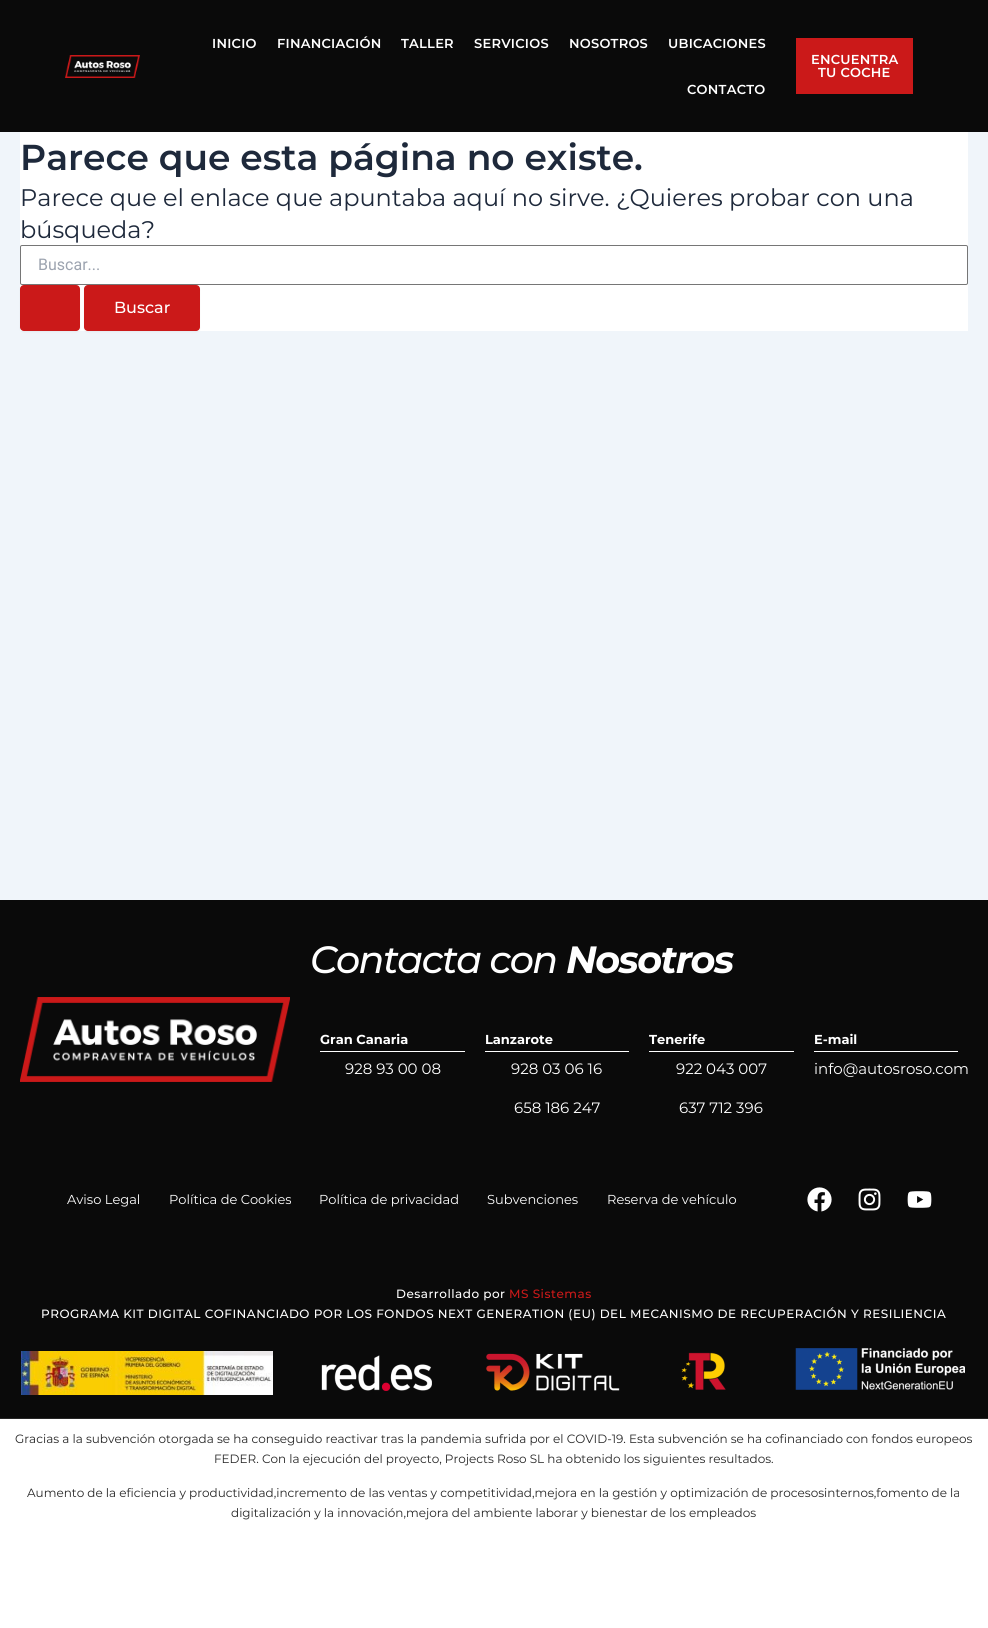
import math
import cairo

surface = cairo.ImageSurface(cairo.FORMAT_RGB24, 988, 1628)
ctx = cairo.Context(surface)
options = cairo.FontOptions()
options.set_hint_metrics(cairo.HINT_METRICS_OFF)
options.set_hint_style(cairo.HINT_STYLE_NONE)
ctx.set_font_options(options)
ctx.set_miter_limit(4)


def set_color(code):
    ctx.set_source_rgb(*(v / 255 for v in bytes.fromhex(code[-6:])))


def draw_text(x, y, s, family, size, color, bold=False, italic=False):
    ctx.select_font_face(family, cairo.FONT_SLANT_ITALIC if italic else cairo.FONT_SLANT_NORMAL, cairo.FONT_WEIGHT_BOLD if bold else cairo.FONT_WEIGHT_NORMAL)
    ctx.set_font_size(size)
    set_color(color)
    ctx.move_to(x, y)
    ctx.show_text(s)


def draw_spaced(x, y, s, letter, word):
    ctx.move_to(x, y)
    for ch in s:
        ctx.show_text(ch)
        ctx.rel_move_to(letter + word * (ch == ' '), 0)


def fill_rect(x, y, w, h, color):
    set_color(color)
    ctx.rectangle(x, y, w, h)
    ctx.fill()


def rounded_rect(x, y, w, h, r):
    ctx.new_sub_path()
    for i, (u, v) in enumerate([(x + w - r, y + h - r), (x + r, y + h - r), (x + r, y + r), (x + w - r, y + r)]):
        ctx.arc(u, v, r, i * math.pi / 2, (i + 1) * math.pi / 2)
    ctx.close_path()


def draw_shadow(x, y, w, h, r, blur, alpha):
    ctx.push_group_with_content(cairo.CONTENT_ALPHA)
    ctx.set_operator(cairo.OPERATOR_SOURCE)
    for i in range(15, -16, -2):
        e = blur * i / 6
        if min(w, h) + 2 * e > 0:
            ctx.set_source_rgba(0, 0, 0, alpha * math.erfc((i - 1) / 8.5) / 2)
            rounded_rect(x - e, y - e, w + 2 * e, h + 2 * e, max(0, min(r + e + blur * .6, min(w, h) / 2 + e)))
            ctx.fill()
    ctx.mask(ctx.pop_group())


def draw_image(path, x, y, w, h):
    ctx.save()
    ctx.set_source_surface(cairo.ImageSurface.create_from_png(path), x, y)
    ctx.rectangle(x, y, w, h)
    ctx.fill()
    ctx.restore()


set_color("#f0f5fa")
ctx.paint()
fill_rect(0, 0, 988, 132, "#0a0a0a")
draw_image("assets/img1.png", 65, 55, 75, 23)
ctx.select_font_face("Montserrat SemiBold")
ctx.set_font_size(13)
set_color("#ffffff")
draw_spaced(212, 48, "INICIO", 0.25, 0)
draw_spaced(277, 48, "FINANCIACIÓN", 0.25, 0)
draw_spaced(401, 48, "TALLER", 0.25, 0)
draw_spaced(474, 48, "SERVICIOS", 0.25, 0)
draw_spaced(569, 48, "NOSOTROS", 0.25, 0)
draw_spaced(668, 48, "UBICACIONES", 0.25, 0)
draw_spaced(687, 94, "CONTACTO", 0.25, 0)
fill_rect(796, 38, 117, 56, "#cb1919")
set_color("#ffffff")
draw_spaced(811, 64, "ENCUENTRA", 0.25, 0)
draw_spaced(818, 77, "TU COCHE", 0.25, 0)
fill_rect(20, 132, 948, 199, "#ffffff")
draw_text(20, 170, "Parece que esta página no existe.", "Montserrat SemiBold", 36, "#1e293b")
draw_text(20, 206, "Parece que el enlace que apuntaba aquí no sirve. ¿Quieres probar con una", "Montserrat", 24, "#1e293b")
draw_text(20, 238, "búsqueda?", "Montserrat", 24, "#1e293b")
rounded_rect(20.5, 245.5, 947, 39, 1.5)
set_color("#767676")
ctx.set_line_width(1)
ctx.stroke()
draw_text(38, 270, "Buscar...", "Roboto", 16, "#9ca3af")
set_color("#000000")
draw_shadow(20, 286, 60, 46, 4, 1, 0.05)
set_color("#cb1919")
rounded_rect(20, 285, 60, 46, 4)
ctx.fill()
set_color("#000000")
draw_shadow(84, 286, 116, 46, 4, 1, 0.05)
set_color("#cb1919")
rounded_rect(84, 285, 116, 46, 4)
ctx.fill()
draw_text(114, 313, "Buscar", "Montserrat Medium", 16, "#ffffff")
fill_rect(0, 900, 988, 518, "#0a0a0a")
draw_image("assets/img2.png", 20, 997, 270, 85)
ctx.select_font_face("Montserrat Medium", cairo.FONT_SLANT_ITALIC)
ctx.set_font_size(38)
set_color("#ffffff")
draw_spaced(310, 973, "Contacta con", -1.5, 0)
ctx.select_font_face("Montserrat", cairo.FONT_SLANT_ITALIC, cairo.FONT_WEIGHT_BOLD)
draw_spaced(566, 973, "Nosotros", -1.5, 0)
fill_rect(320, 1051, 145, 1, "#ffffff")
draw_text(320, 1044, "Gran Canaria", "Montserrat", 13, "#ffffff", bold=True)
draw_text(345, 1074, "928 93 00 08", "Montserrat", 15, "#ffffff")
fill_rect(485, 1051, 144, 1, "#ffffff")
draw_text(485, 1044, "Lanzarote", "Montserrat", 13, "#ffffff", bold=True)
draw_text(511, 1074, "928 03 06 16", "Montserrat", 15, "#ffffff")
draw_text(514, 1113, "658 186 247", "Montserrat", 15, "#ffffff")
fill_rect(649, 1051, 145, 1, "#ffffff")
draw_text(649, 1044, "Tenerife", "Montserrat", 13, "#ffffff", bold=True)
draw_text(676, 1074, "922 043 007", "Montserrat", 15, "#ffffff")
draw_text(679, 1113, "637 712 396", "Montserrat", 15, "#ffffff")
fill_rect(814, 1051, 144, 1, "#ffffff")
draw_text(814, 1044, "E-mail", "Montserrat", 13, "#ffffff", bold=True)
draw_text(814, 1074, "info@autosroso.com", "Montserrat", 15, "#ffffff")
draw_text(67, 1204, "Aviso Legal", "Montserrat", 13, "#ffffff")
draw_text(169, 1204, "Política de Cookies", "Montserrat", 13, "#ffffff")
draw_text(319, 1204, "Política de privacidad", "Montserrat", 13, "#ffffff")
draw_text(487, 1204, "Subvenciones", "Montserrat", 13, "#ffffff")
draw_text(607, 1204, "Reserva de vehículo", "Montserrat", 13, "#ffffff")
draw_image("assets/img3.png", 807, 1187, 25, 25)
draw_image("assets/img4.png", 858, 1188, 23, 23)
draw_image("assets/img5.png", 907, 1191, 25, 17)
ctx.select_font_face("Montserrat Medium")
ctx.set_font_size(12)
draw_spaced(396, 1298, "Desarrollado por", 0.5, 0)
set_color("#cb1919")
draw_spaced(509, 1298, "MS Sistemas", 0.5, 0)
set_color("#ffffff")
draw_spaced(41, 1318, "PROGRAMA KIT DIGITAL COFINANCIADO POR LOS FONDOS NEXT GENERATION (EU) DEL MECANISMO DE RECUPERACIÓN Y RESILIENCIA", 0.5, 0)
draw_image("assets/img6.png", 21, 1351, 252, 44)
draw_image("assets/img7.png", 321, 1355, 111, 36)
draw_image("assets/img8.png", 486, 1353, 134, 38)
draw_image("assets/img9.png", 681, 1352, 45, 38)
draw_image("assets/img10.png", 795, 1348, 170, 42)
fill_rect(0, 1419, 988, 209, "#ffffff")
fill_rect(0, 1418, 988, 1, "#262626")
draw_text(15, 1443, "Gracias a la subvención otorgada se ha conseguido reactivar tras la pandemia sufrida por el COVID-19. Esta subvención se ha cofinanciado con fondos europeos", "Montserrat", 12, "#262626")
draw_text(214, 1463, "FEDER. Con la ejecución del proyecto, Projects Roso SL ha obtenido los siguientes resultados.", "Montserrat", 12, "#262626")
draw_text(27, 1497, "Aumento de la eficiencia y productividad,incremento de las ventas y competitividad,mejora en la gestión y optimización de procesosinternos,fomento de la", "Montserrat", 12, "#262626")
draw_text(231, 1517, "digitalización y la innovación,mejora del ambiente laborar y bienestar de los empleados", "Montserrat", 12, "#262626")
surface.write_to_png("output.png")
